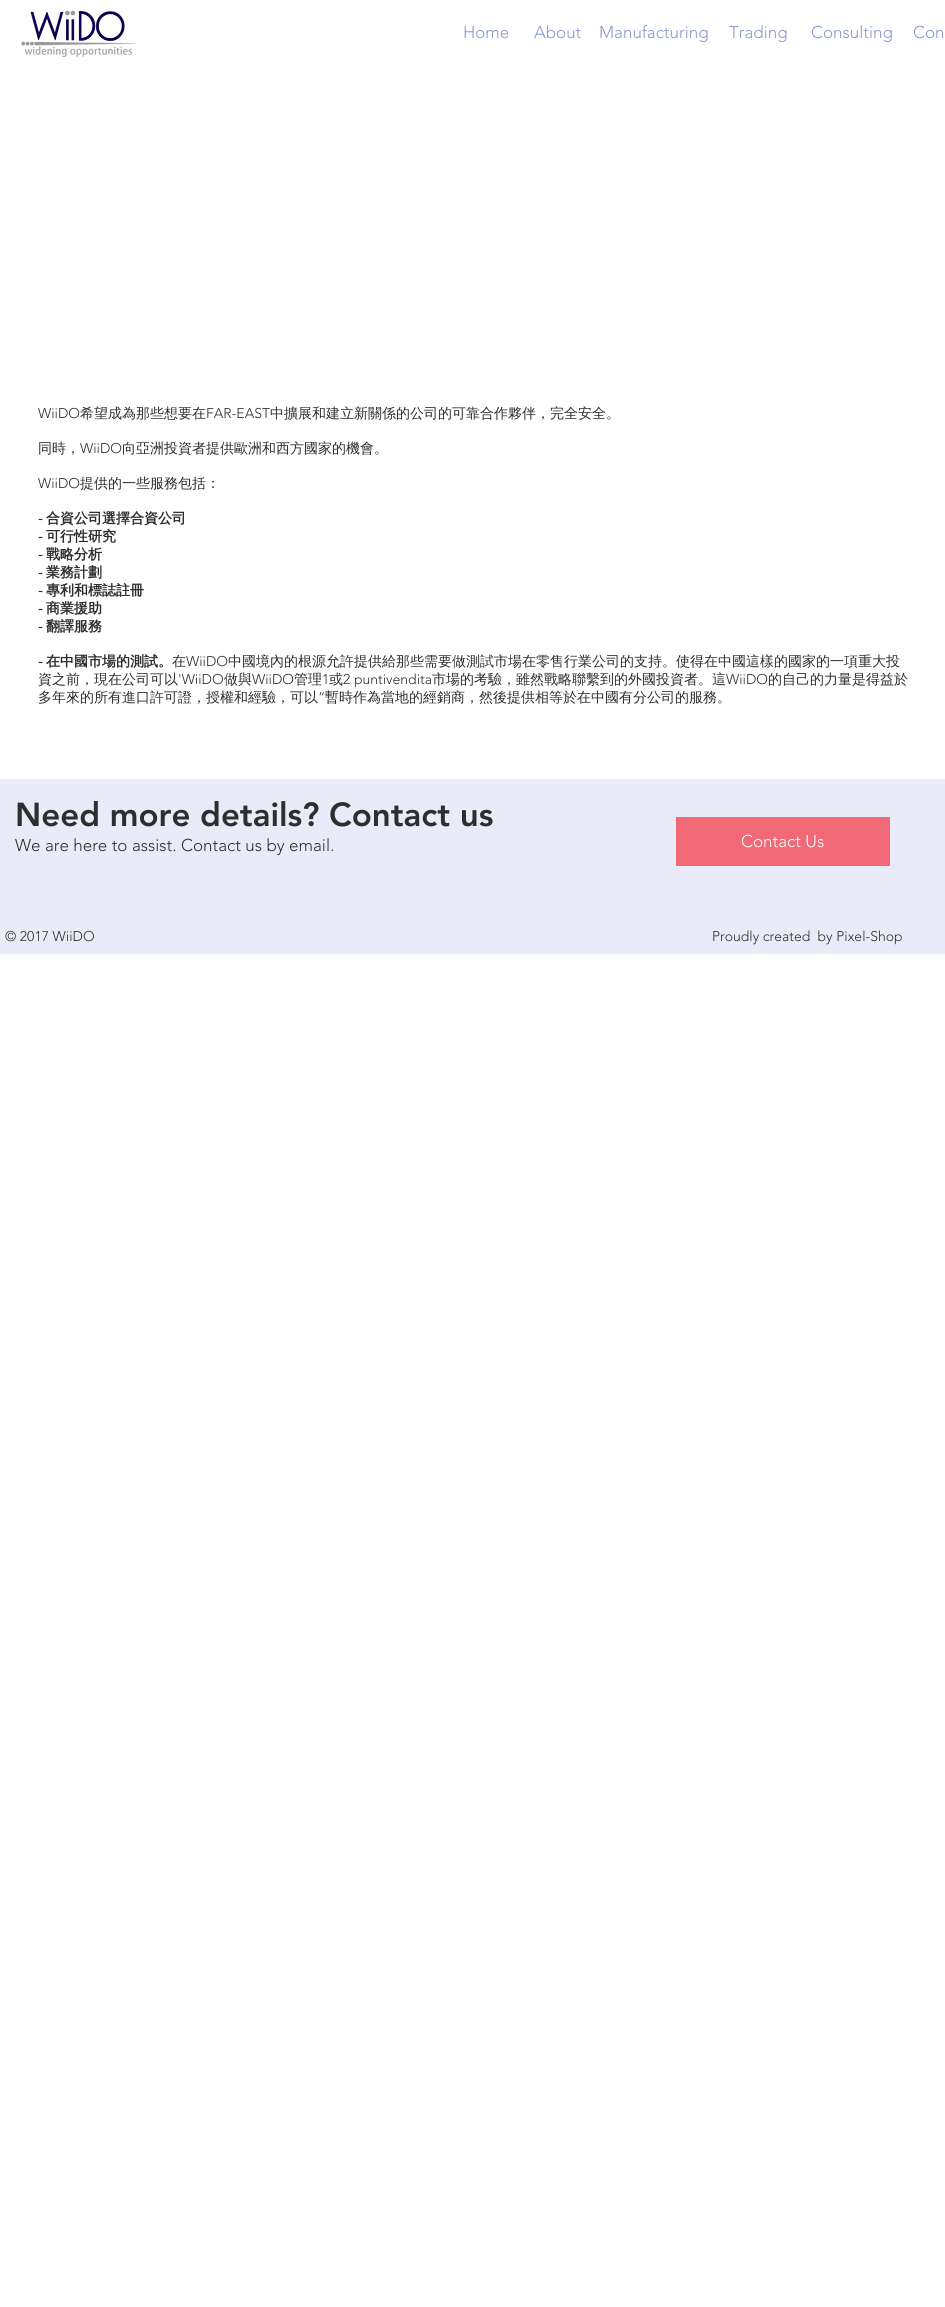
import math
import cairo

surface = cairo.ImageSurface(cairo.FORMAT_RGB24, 945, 2307)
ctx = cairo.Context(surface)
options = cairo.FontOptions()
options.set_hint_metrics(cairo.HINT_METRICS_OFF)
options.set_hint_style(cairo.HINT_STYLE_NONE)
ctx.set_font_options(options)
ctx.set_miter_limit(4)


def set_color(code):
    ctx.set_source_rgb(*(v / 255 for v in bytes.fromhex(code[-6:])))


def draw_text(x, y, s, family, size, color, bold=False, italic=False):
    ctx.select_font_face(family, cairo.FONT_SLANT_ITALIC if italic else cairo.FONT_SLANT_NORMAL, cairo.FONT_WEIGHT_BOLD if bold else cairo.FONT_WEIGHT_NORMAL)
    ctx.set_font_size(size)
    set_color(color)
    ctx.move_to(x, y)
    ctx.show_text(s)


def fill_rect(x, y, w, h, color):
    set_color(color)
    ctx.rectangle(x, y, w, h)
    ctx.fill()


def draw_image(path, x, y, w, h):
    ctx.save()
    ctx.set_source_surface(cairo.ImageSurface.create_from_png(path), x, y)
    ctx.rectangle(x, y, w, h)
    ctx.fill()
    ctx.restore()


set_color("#ffffff")
ctx.paint()
draw_image("assets/img1.png", 21, 10, 114, 47)
draw_text(463, 38, "Home", "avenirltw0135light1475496 Light", 17, "#8999d0")
draw_text(534, 38, "About", "avenirltw0135light1475496 Light", 17, "#8999d0")
draw_text(599, 38, "Manufacturing", "avenirltw0135light1475496 Light", 17, "#8999d0")
draw_text(729, 38, "Trading", "avenirltw0135light1475496 Light", 17, "#8999d0")
draw_text(811, 38, "Consulting", "avenirltw0135light1475496 Light", 17, "#8999d0")
draw_text(913, 38, "Con", "avenirltw0135light1475496 Light", 17, "#8999d0")
draw_text(38, 418, "WiiDO", "avenirltw0135light1475496 Light", 14, "#2f2e2e")
draw_text(80, 418, "希望成為那些想要在", "WenQuanYi Zen Hei Medium", 14, "#2f2e2e")
draw_text(206, 418, "FAR-EAST", "avenirltw0135light1475496 Light", 14, "#2f2e2e")
draw_text(270, 418, "中擴展和建立新關係的公司的可靠合作夥伴，完全安全。", "WenQuanYi Zen Hei Medium", 14, "#2f2e2e")
draw_text(38, 453, "同時，", "WenQuanYi Zen Hei Medium", 14, "#2f2e2e")
draw_text(80, 453, "WiiDO", "avenirltw0135light1475496 Light", 14, "#2f2e2e")
draw_text(122, 453, "向亞洲投資者提供歐洲和西方國家的機會。", "WenQuanYi Zen Hei Medium", 14, "#2f2e2e")
draw_text(38, 488, "WiiDO", "avenirltw0135light1475496 Light", 14, "#2f2e2e")
draw_text(80, 488, "提供的一些服務包括：", "WenQuanYi Zen Hei Medium", 14, "#2f2e2e")
draw_text(38, 523, "-", "avenirltw0135light1475496", 14, "#2f2e2e", bold=True)
draw_text(46, 523, "合資公司選擇合資公司", "WenQuanYi Zen Hei", 14, "#2f2e2e", bold=True)
draw_text(38, 541, "-", "avenirltw0135light1475496", 14, "#2f2e2e", bold=True)
draw_text(46, 541, "可行性研究", "WenQuanYi Zen Hei", 14, "#2f2e2e", bold=True)
draw_text(38, 559, "-", "avenirltw0135light1475496", 14, "#2f2e2e", bold=True)
draw_text(46, 559, "戰略分析", "WenQuanYi Zen Hei", 14, "#2f2e2e", bold=True)
draw_text(38, 577, "-", "avenirltw0135light1475496", 14, "#2f2e2e", bold=True)
draw_text(46, 577, "業務計劃", "WenQuanYi Zen Hei", 14, "#2f2e2e", bold=True)
draw_text(38, 595, "-", "avenirltw0135light1475496", 14, "#2f2e2e", bold=True)
draw_text(46, 595, "專利和標誌註冊", "WenQuanYi Zen Hei", 14, "#2f2e2e", bold=True)
draw_text(38, 613, "-", "avenirltw0135light1475496", 14, "#2f2e2e", bold=True)
draw_text(46, 613, "商業援助", "WenQuanYi Zen Hei", 14, "#2f2e2e", bold=True)
draw_text(38, 631, "-", "avenirltw0135light1475496", 14, "#2f2e2e", bold=True)
draw_text(46, 631, "翻譯服務", "WenQuanYi Zen Hei", 14, "#2f2e2e", bold=True)
draw_text(38, 666, "-", "avenirltw0135light1475496", 14, "#2f2e2e", bold=True)
draw_text(46, 666, "在中國市場的測試。", "WenQuanYi Zen Hei", 14, "#2f2e2e", bold=True)
draw_text(172, 666, "在", "WenQuanYi Zen Hei Medium", 14, "#2f2e2e")
draw_text(186, 666, "WiiDO", "avenirltw0135light1475496 Light", 14, "#2f2e2e")
draw_text(228, 666, "中國境內的根源允許提供給那些需要做測試市場在零售行業公司的支持。使得在中國這樣的國家的一項重大投", "WenQuanYi Zen Hei Medium", 14, "#2f2e2e")
draw_text(38, 684, "資之前，現在公司可以", "WenQuanYi Zen Hei Medium", 14, "#2f2e2e")
draw_text(178, 684, "'WiiDO", "avenirltw0135light1475496 Light", 14, "#2f2e2e")
draw_text(224, 684, "做與", "WenQuanYi Zen Hei Medium", 14, "#2f2e2e")
draw_text(252, 684, "WiiDO", "avenirltw0135light1475496 Light", 14, "#2f2e2e")
draw_text(294, 684, "管理", "WenQuanYi Zen Hei Medium", 14, "#2f2e2e")
draw_text(322, 684, "1", "avenirltw0135light1475496 Light", 14, "#2f2e2e")
draw_text(329, 684, "或", "WenQuanYi Zen Hei Medium", 14, "#2f2e2e")
draw_text(343, 684, "2 puntivendita", "avenirltw0135light1475496 Light", 14, "#2f2e2e")
draw_text(432, 684, "市場的考驗，雖然戰略聯繫到的外國投資者。這", "WenQuanYi Zen Hei Medium", 14, "#2f2e2e")
draw_text(726, 684, "WiiDO", "avenirltw0135light1475496 Light", 14, "#2f2e2e")
draw_text(768, 684, "的自己的力量是得益於", "WenQuanYi Zen Hei Medium", 14, "#2f2e2e")
draw_text(38, 702, "多年來的所有進口許可證，授權和經驗，可以", "WenQuanYi Zen Hei Medium", 14, "#2f2e2e")
draw_text(318, 702, "“", "avenirltw0135light1475496 Light", 14, "#2f2e2e")
draw_text(325, 702, "暫時作為當地的經銷商，然後提供相等於在中國有分公司的服務。", "WenQuanYi Zen Hei Medium", 14, "#2f2e2e")
fill_rect(0, 779, 945, 175, "#e9ecf8")
draw_text(15, 826, "Need more details? Contact us", "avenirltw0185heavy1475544 Black", 33, "#2f2e2e")
draw_text(15, 851, "We are here to assist. Contact us by email.", "avenirltw0135light1475496 Light", 17, "#2f2e2e")
fill_rect(676, 817, 214, 49, "#f16876")
draw_text(741, 847, "Contact Us", "avenirltw0135light1475496 Light", 17, "#ffffff")
draw_text(5, 941, "© 2017 WiiDO", "avenirltw0135light1475496 Light", 14, "#2f2e2e")
draw_text(712, 941, "Proudly created  by Pixel-Shop", "avenirltw0135light1475496 Light", 14, "#2f2e2e")
surface.write_to_png("output.png")
